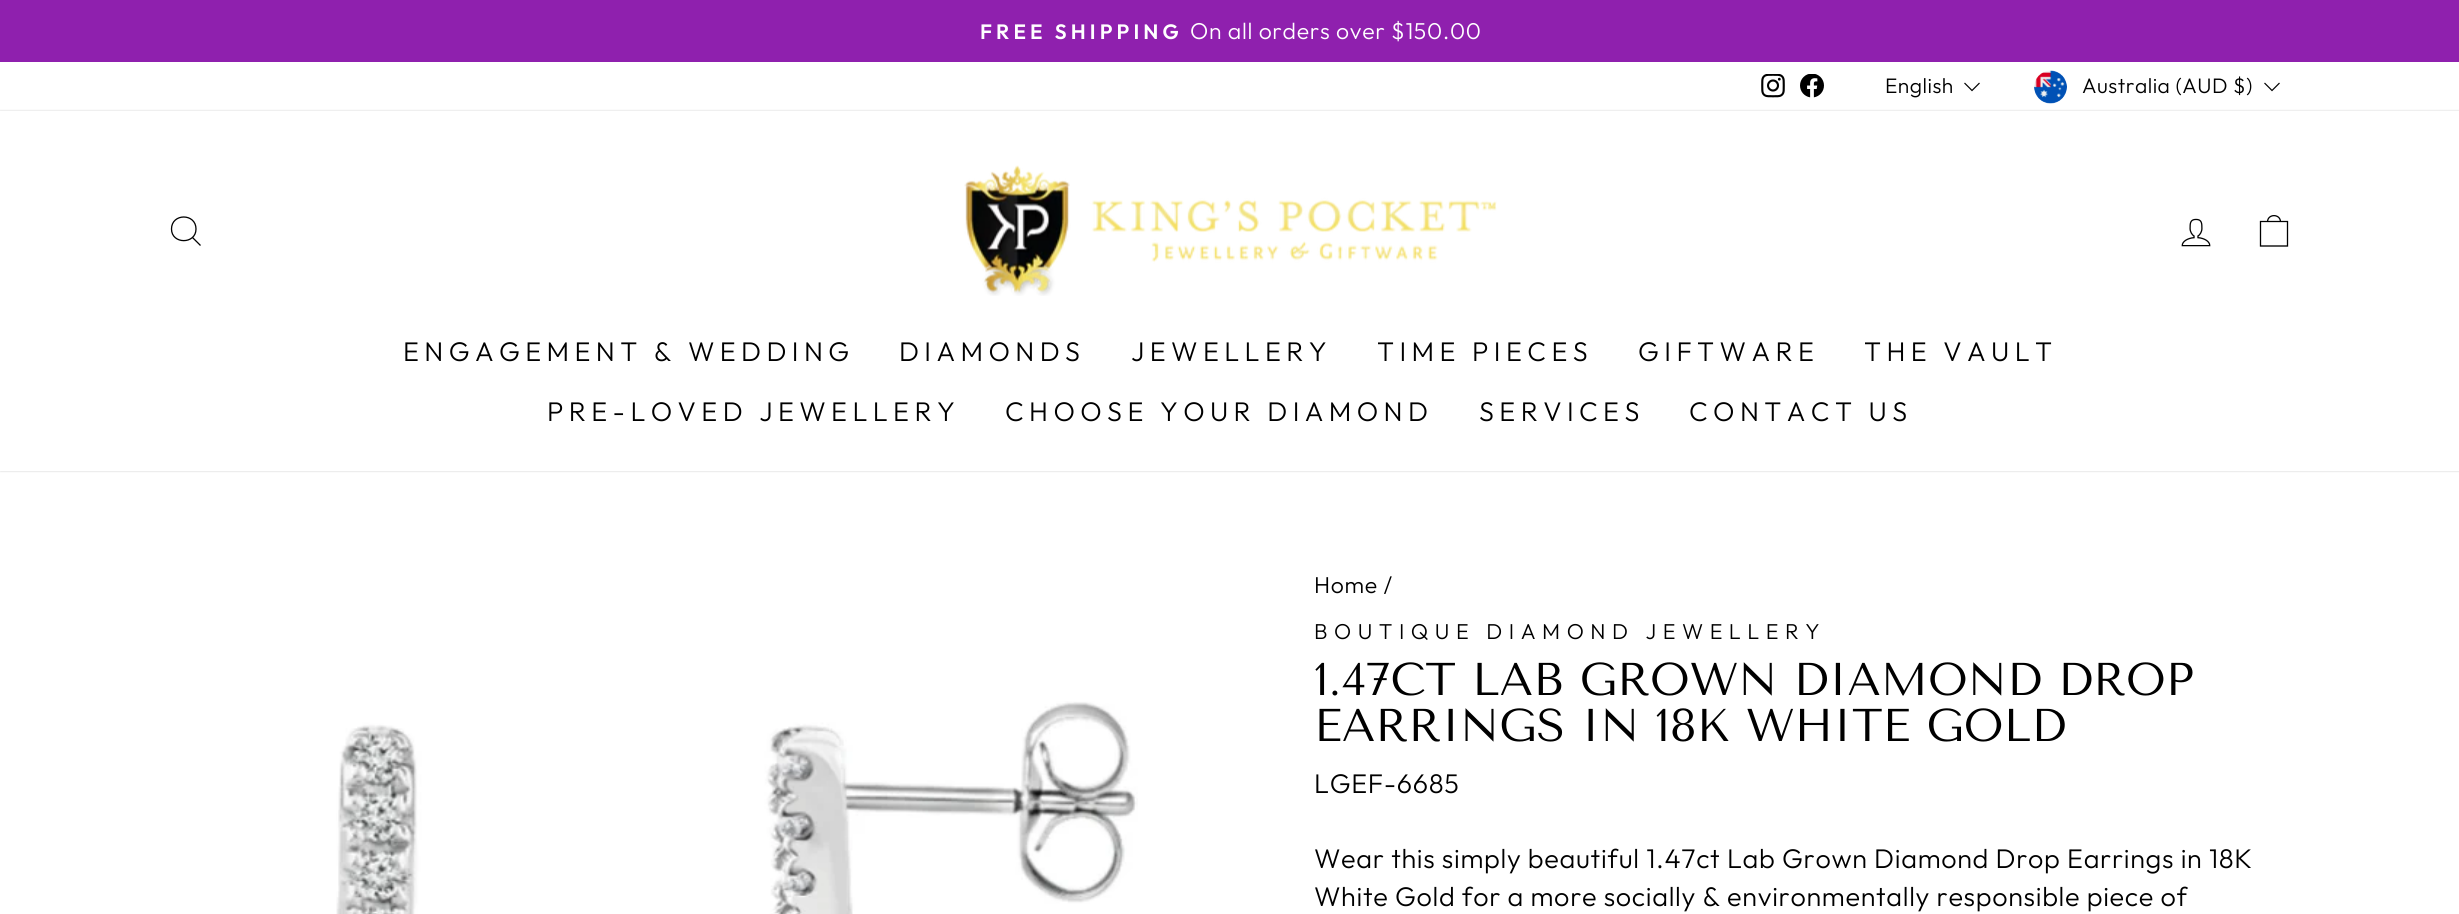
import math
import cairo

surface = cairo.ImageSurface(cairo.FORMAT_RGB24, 2459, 914)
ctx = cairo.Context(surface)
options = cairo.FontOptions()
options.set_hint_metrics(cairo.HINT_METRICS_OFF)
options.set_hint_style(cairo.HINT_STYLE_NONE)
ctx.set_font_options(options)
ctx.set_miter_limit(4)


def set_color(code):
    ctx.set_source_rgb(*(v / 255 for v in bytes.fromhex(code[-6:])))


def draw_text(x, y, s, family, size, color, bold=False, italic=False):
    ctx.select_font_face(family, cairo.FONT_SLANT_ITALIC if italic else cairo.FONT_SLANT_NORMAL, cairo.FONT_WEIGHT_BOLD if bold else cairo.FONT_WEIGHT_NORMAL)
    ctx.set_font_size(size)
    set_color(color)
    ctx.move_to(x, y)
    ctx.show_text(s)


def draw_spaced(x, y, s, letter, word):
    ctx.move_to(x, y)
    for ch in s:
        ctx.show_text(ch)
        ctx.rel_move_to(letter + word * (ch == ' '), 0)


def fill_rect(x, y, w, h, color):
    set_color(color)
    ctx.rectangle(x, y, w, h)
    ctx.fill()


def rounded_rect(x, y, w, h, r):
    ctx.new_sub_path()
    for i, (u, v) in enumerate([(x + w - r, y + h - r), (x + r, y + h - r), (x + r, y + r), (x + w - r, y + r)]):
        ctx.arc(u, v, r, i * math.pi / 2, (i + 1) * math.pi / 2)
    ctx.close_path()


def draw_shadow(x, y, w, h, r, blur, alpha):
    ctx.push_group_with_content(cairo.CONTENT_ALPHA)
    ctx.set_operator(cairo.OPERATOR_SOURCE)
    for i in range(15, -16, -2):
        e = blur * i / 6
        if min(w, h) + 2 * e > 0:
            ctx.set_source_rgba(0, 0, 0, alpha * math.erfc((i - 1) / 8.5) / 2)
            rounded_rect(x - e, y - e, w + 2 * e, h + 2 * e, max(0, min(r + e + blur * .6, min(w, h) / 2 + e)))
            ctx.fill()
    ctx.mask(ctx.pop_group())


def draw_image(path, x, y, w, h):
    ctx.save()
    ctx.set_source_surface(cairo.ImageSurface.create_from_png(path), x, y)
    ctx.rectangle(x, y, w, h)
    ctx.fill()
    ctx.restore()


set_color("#ffffff")
ctx.paint()
fill_rect(0, 0, 2459, 62, "#8f20ae")
ctx.select_font_face("Outfit SemiBold")
ctx.set_font_size(20.75)
set_color("#ffffff")
draw_spaced(980, 39, "FREE SHIPPING", 4.1, 0)
ctx.select_font_face("Outfit Light")
ctx.set_font_size(23)
draw_spaced(1190, 39, "On all orders over $150.00", 0.68, 0)
draw_image("assets/img1.png", 1761, 74, 24, 24)
draw_image("assets/img2.png", 1800, 74, 24, 24)
ctx.set_font_size(21)
set_color("#000000")
draw_spaced(1885, 93, "English", 0.5, 0)
ctx.new_path()
ctx.move_to(1964.5, 83)
ctx.line_to(1972, 90.5)
ctx.line_to(1979.5, 83)
ctx.set_line_width(1.2)
ctx.stroke()
draw_image("assets/img3.png", 2034, 70, 33, 34)
draw_spaced(2082, 93, "Australia (AUD $)", 0.5, 0)
ctx.new_path()
ctx.move_to(2264.5, 83)
ctx.line_to(2272, 90.5)
ctx.line_to(2279.5, 83)
ctx.stroke()
ctx.save()
ctx.set_fill_rule(cairo.FILL_RULE_EVEN_ODD)
ctx.new_path()
ctx.move_to(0, 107)
ctx.line_to(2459, 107)
ctx.line_to(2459, 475)
ctx.line_to(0, 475)
ctx.close_path()
ctx.move_to(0, 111)
ctx.line_to(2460, 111)
ctx.line_to(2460, 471)
ctx.line_to(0, 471)
ctx.close_path()
ctx.clip()
set_color("#000000")
draw_shadow(0, 111, 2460, 360, 0, 1, 0.2)
ctx.restore()
ctx.new_path()
ctx.move_to(196, 229)
ctx.curve_to(196, 244.5, 171.5, 244.5, 171.5, 229)
ctx.curve_to(171.5, 213, 196, 213, 196, 229)
ctx.close_path()
ctx.move_to(200.5, 245.5)
ctx.line_to(192.5, 237.5)
ctx.set_line_width(1.3)
ctx.stroke()
draw_image("assets/img4.png", 964, 165, 533, 131)
draw_image("assets/img5.png", 2181, 218, 30, 29)
ctx.new_path()
ctx.move_to(2260.5, 221.5)
ctx.line_to(2287.5, 221.5)
ctx.line_to(2287.5, 246)
ctx.line_to(2260.5, 246)
ctx.close_path()
ctx.move_to(2267.5, 222)
ctx.curve_to(2267.5, 213.5, 2280.5, 213.5, 2280.5, 222)
ctx.stroke()
ctx.set_font_size(27)
draw_spaced(403, 361, "ENGAGEMENT & WEDDING", 5.4, 0)
draw_spaced(899, 361, "DIAMONDS", 5.4, 0)
draw_spaced(1131, 361, "JEWELLERY", 5.4, 0)
draw_spaced(1377, 361, "TIME PIECES", 5.4, 0)
draw_spaced(1638, 361, "GIFTWARE", 5.4, 0)
draw_spaced(1864, 361, "THE VAULT", 5.4, 0)
draw_spaced(547, 421, "PRE-LOVED JEWELLERY", 5.4, 0)
draw_spaced(1005, 421, "CHOOSE YOUR DIAMOND", 5.4, 0)
draw_spaced(1479, 421, "SERVICES", 5.4, 0)
draw_spaced(1689, 421, "CONTACT US", 5.4, 0)
draw_image("assets/img6.png", 336, 701, 802, 213)
ctx.set_font_size(23)
draw_spaced(1314, 593, "Home /", 0.68, 0)
ctx.set_font_size(21.6)
draw_spaced(1314, 639, "BOUTIQUE DIAMOND JEWELLERY", 6.5, 0)
draw_text(1314, 695, "1.47CT LAB GROWN DIAMOND DROP", "Tenor Sans", 45.9, "#000000")
draw_text(1314, 741, "EARRINGS IN 18K WHITE GOLD", "Tenor Sans", 45.9, "#000000")
ctx.select_font_face("Outfit Light")
ctx.set_font_size(27)
draw_spaced(1314, 793, "LGEF-6685", 0.68, 0)
draw_spaced(1314, 868, "Wear this simply beautiful 1.47ct Lab Grown Diamond Drop Earrings in 18K", 0.68, 0)
draw_spaced(1314, 906, "White Gold for a more socially & environmentally responsible piece of", 0.68, 0)
surface.write_to_png("output.png")
